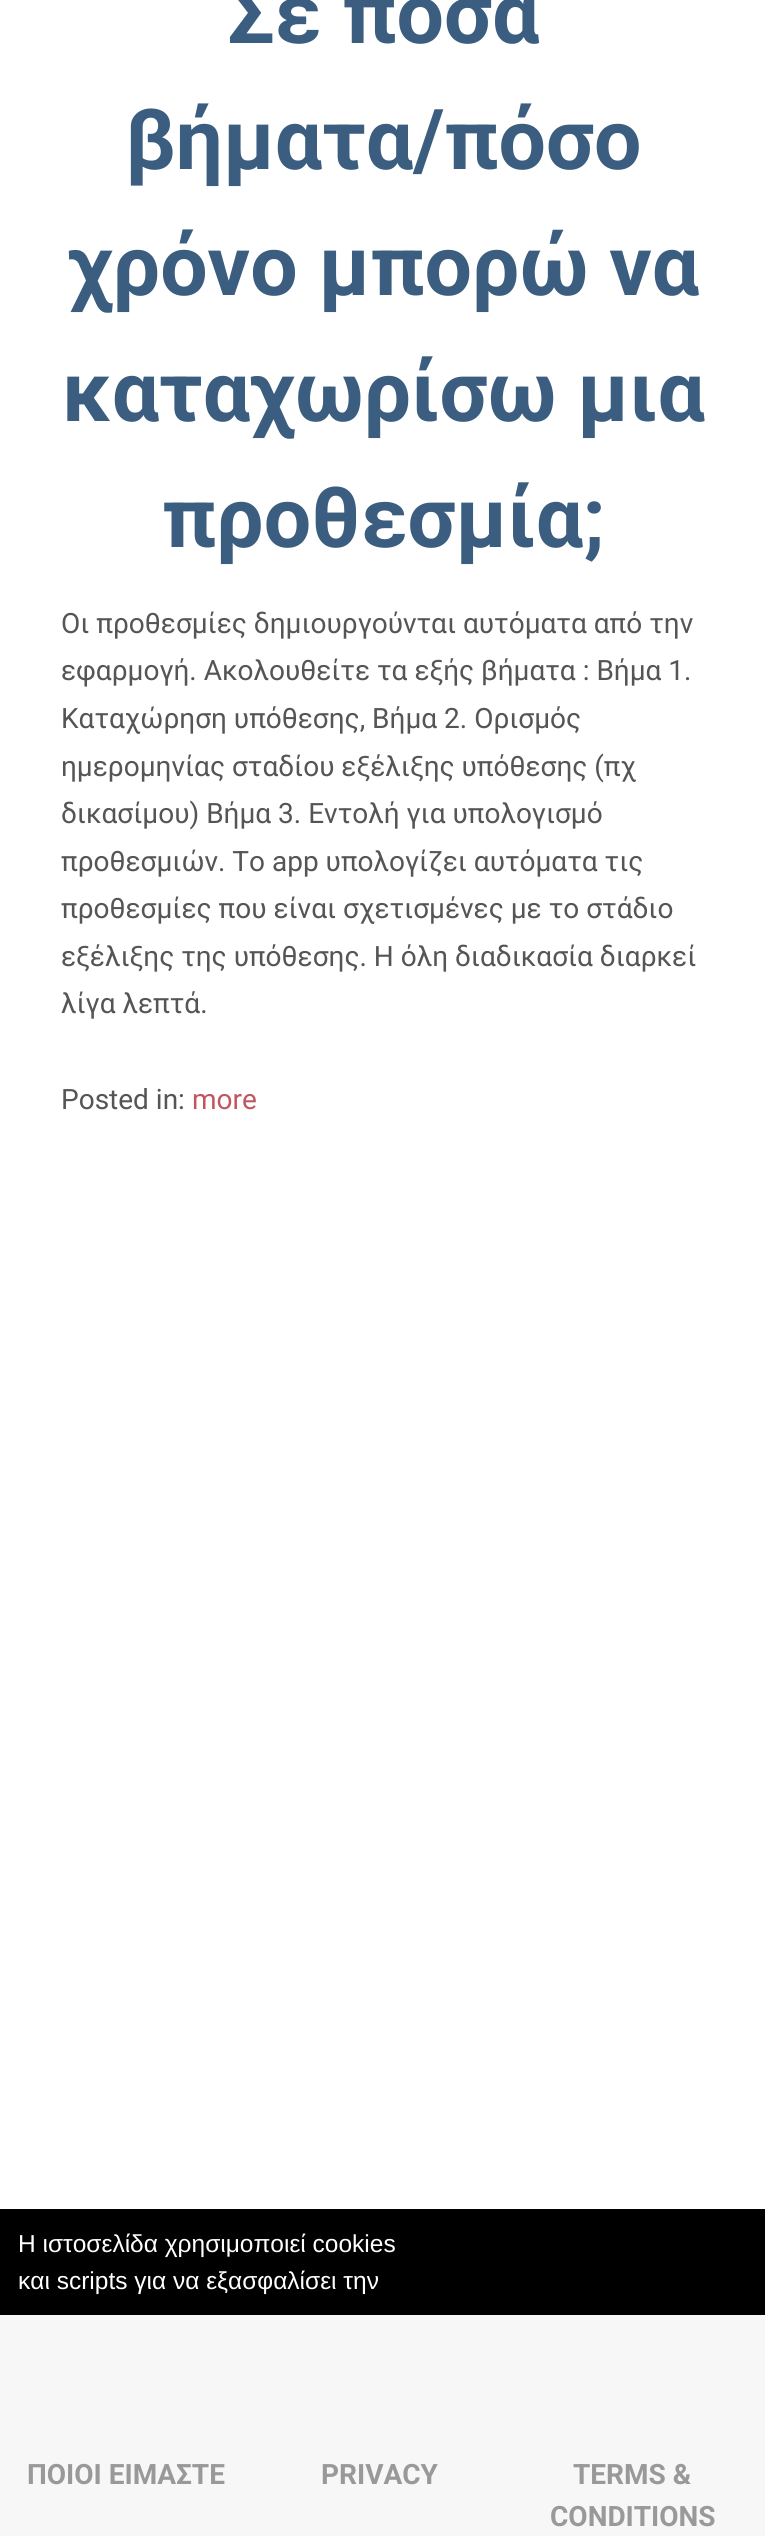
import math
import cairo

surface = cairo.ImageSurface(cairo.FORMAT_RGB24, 765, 2536)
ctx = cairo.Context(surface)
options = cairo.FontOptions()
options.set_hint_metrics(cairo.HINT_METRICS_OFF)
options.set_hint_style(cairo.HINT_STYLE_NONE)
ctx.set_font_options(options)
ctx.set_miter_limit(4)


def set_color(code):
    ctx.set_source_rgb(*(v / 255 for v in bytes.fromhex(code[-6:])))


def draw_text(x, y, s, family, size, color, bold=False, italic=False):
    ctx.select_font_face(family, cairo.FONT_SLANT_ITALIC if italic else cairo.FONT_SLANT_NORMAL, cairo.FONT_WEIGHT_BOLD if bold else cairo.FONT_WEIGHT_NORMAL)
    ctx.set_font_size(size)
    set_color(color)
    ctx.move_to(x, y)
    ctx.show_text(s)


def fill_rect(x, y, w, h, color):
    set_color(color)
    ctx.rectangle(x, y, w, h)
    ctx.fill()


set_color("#ffffff")
ctx.paint()
draw_text(227, 43, "Σε πόσα", "Roboto", 84, "#3b5e80", bold=True)
draw_text(125, 169, "βήματα/πόσο", "Roboto", 84, "#3b5e80", bold=True)
draw_text(68, 295, "χρόνο μπορώ να", "Roboto", 84, "#3b5e80", bold=True)
draw_text(62, 421, "καταχωρίσω μια", "Roboto", 84, "#3b5e80", bold=True)
draw_text(162, 547, "προθεσμία;", "Roboto", 84, "#3b5e80", bold=True)
draw_text(61, 633, "Οι προθεσμίες δημιουργούνται αυτόματα από την", "Roboto", 28, "#555555")
draw_text(61, 680, "εφαρμογή. Ακολουθείτε τα εξής βήματα : Βήμα 1.", "Roboto", 28, "#555555")
draw_text(61, 728, "Καταχώρηση υπόθεσης, Βήμα 2. Ορισμός", "Roboto", 28, "#555555")
draw_text(61, 776, "ημερομηνίας σταδίου εξέλιξης υπόθεσης (πχ", "Roboto", 28, "#555555")
draw_text(61, 823, "δικασίμου) Βήμα 3. Εντολή για υπολογισμό", "Roboto", 28, "#555555")
draw_text(61, 871, "προθεσμιών. Το app υπολογίζει αυτόματα τις", "Roboto", 28, "#555555")
draw_text(61, 918, "προθεσμίες που είναι σχετισμένες με το στάδιο", "Roboto", 28, "#555555")
draw_text(61, 966, "εξέλιξης της υπόθεσης. Η όλη διαδικασία διαρκεί", "Roboto", 28, "#555555")
draw_text(61, 1013, "λίγα λεπτά.", "Roboto", 28, "#555555")
draw_text(61, 1109, "Posted in:", "Roboto", 28, "#555555")
draw_text(192, 1109, "more", "Roboto", 28, "#c15661")
fill_rect(0, 2209, 765, 106, "#000000")
draw_text(18, 2252, "Η ιστοσελίδα χρησιμοποιεί cookies", "Liberation Sans", 24.5, "#ffffff")
draw_text(18, 2289, "και scripts για να εξασφαλίσει την", "Liberation Sans", 24.5, "#ffffff")
fill_rect(0, 2315, 765, 221, "#f7f7f7")
draw_text(27, 2484, "ΠΟΙΟΙ ΕΙΜΑΣΤΕ", "Roboto", 28, "#999999", bold=True)
draw_text(321, 2484, "PRIVACY", "Roboto", 28, "#999999", bold=True)
draw_text(573, 2484, "TERMS &", "Roboto", 28, "#999999", bold=True)
draw_text(550, 2526, "CONDITIONS", "Roboto", 28, "#999999", bold=True)
surface.write_to_png("output.png")
